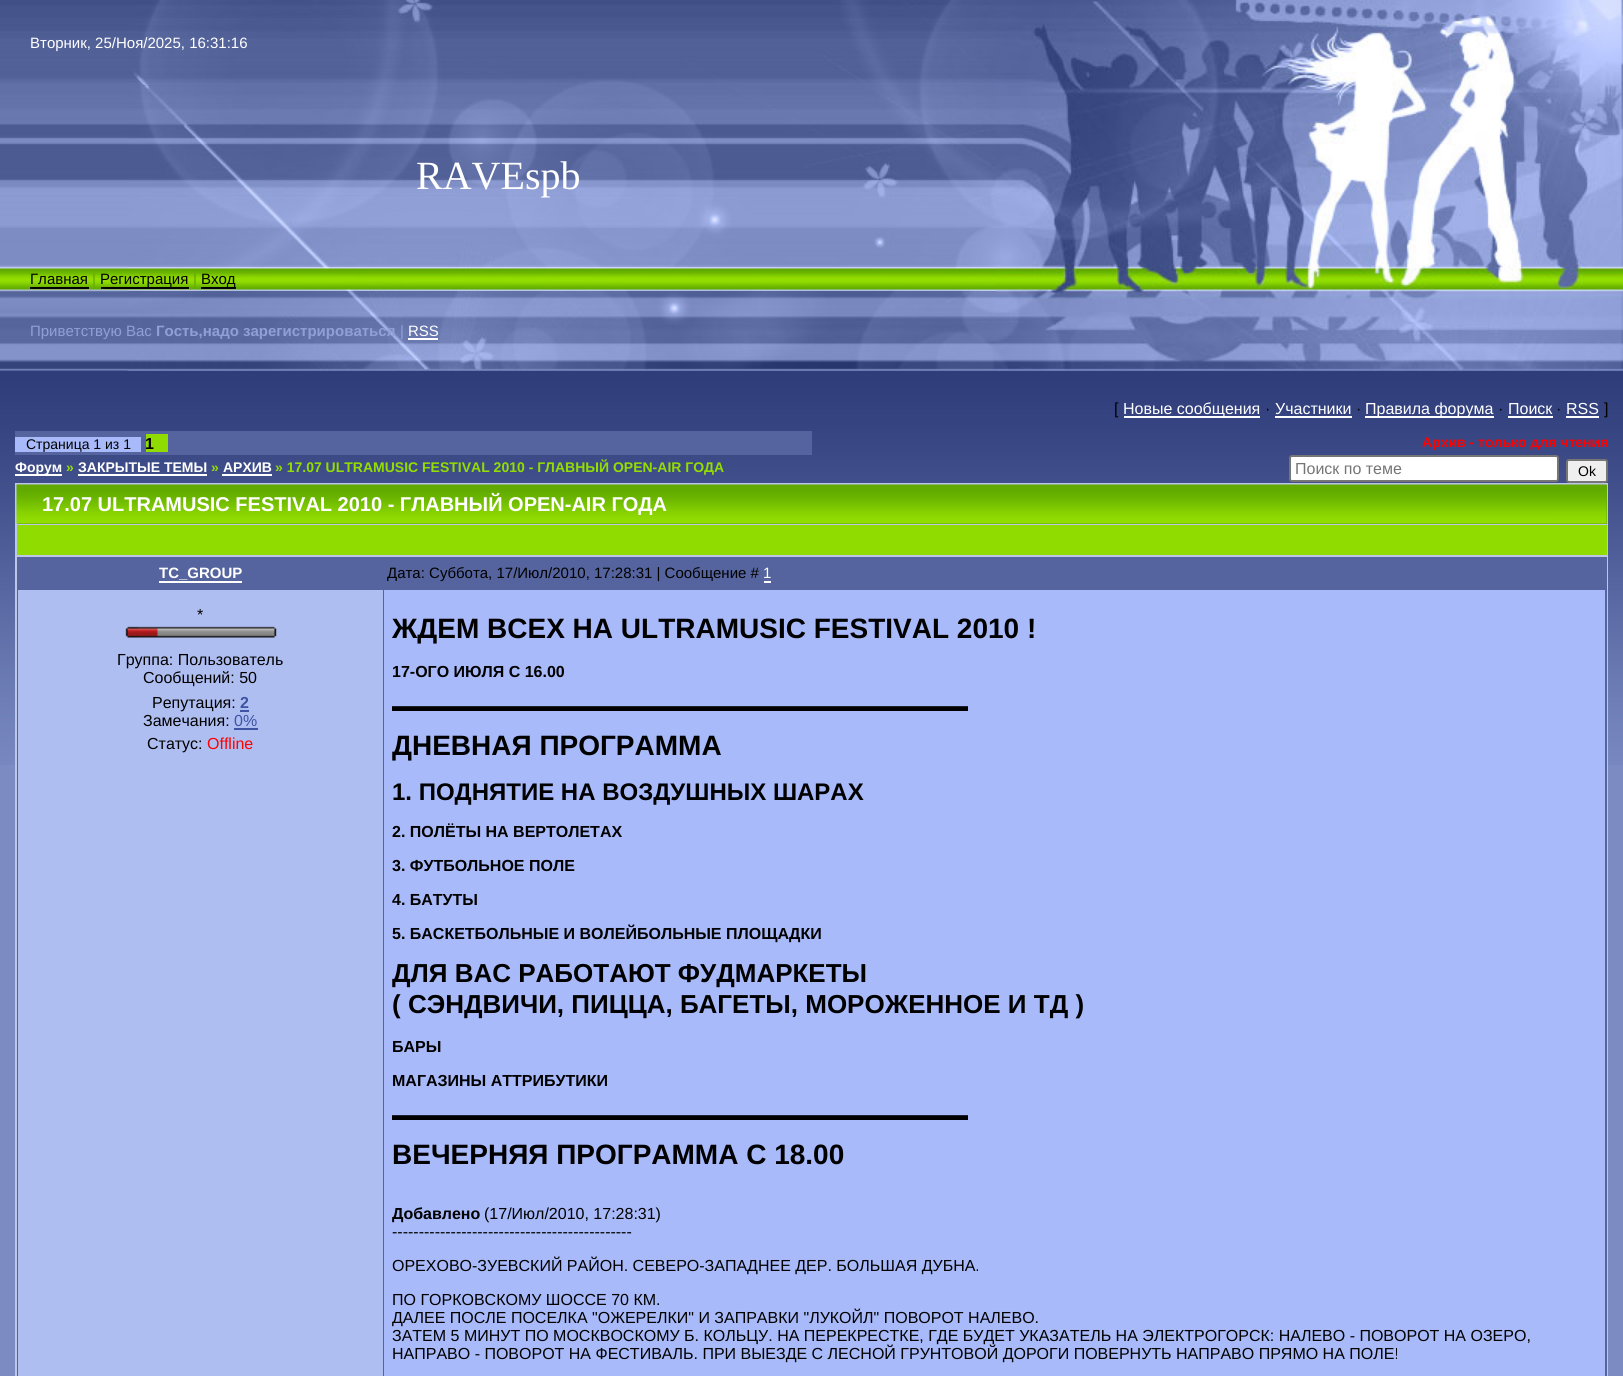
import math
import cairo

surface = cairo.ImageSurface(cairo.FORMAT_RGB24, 1623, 1376)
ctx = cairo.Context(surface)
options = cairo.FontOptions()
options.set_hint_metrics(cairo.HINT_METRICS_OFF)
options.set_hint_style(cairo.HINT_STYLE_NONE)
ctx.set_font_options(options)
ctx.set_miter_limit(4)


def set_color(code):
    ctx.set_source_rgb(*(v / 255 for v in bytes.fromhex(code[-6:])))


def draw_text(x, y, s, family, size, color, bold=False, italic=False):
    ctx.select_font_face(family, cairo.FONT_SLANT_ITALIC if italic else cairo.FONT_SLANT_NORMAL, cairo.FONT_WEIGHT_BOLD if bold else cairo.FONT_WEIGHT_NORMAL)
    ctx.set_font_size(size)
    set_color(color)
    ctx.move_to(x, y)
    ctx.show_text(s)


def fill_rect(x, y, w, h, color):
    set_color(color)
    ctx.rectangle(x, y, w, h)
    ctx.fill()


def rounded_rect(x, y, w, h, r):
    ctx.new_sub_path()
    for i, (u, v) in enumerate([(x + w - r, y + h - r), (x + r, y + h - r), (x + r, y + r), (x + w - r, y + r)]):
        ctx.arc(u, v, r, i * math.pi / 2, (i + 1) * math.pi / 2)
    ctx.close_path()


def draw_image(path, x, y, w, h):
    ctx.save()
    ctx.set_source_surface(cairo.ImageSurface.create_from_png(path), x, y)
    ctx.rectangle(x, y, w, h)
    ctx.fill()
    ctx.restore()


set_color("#7c8cc3")
ctx.paint()
draw_image("assets/img1.png", 0, 0, 1623, 765)
draw_image("assets/img2.png", 133, 0, 863, 86)
draw_text(30, 48, "Вторник, 25/Ноя/2025, 16:31:16", "Liberation Sans", 15, "#ffffff")
draw_image("assets/img3.png", 996, 0, 627, 371)
draw_image("assets/img4.png", 127, 85, 869, 182)
draw_text(416, 189, "RAVEspb", "Liberation Serif", 40, "#ffffff")
draw_image("assets/img5.png", 127, 267, 869, 24)
draw_text(30, 284, "Главная", "Liberation Sans", 15, "#000000")
fill_rect(30, 287, 59, 2, "#000000")
draw_text(92, 284, "|", "Liberation Sans", 15, "#61a800")
fill_rect(101, 287, 88, 2, "#000000")
draw_text(100, 284, "Регистрация", "Liberation Sans", 15, "#000000")
draw_text(193, 284, "|", "Liberation Sans", 15, "#61a800")
draw_text(201, 284, "Вход", "Liberation Sans", 15, "#000000")
fill_rect(201, 287, 35, 2, "#000000")
draw_image("assets/img6.png", 127, 291, 869, 80)
draw_text(30, 336, "Приветствую Вас", "Liberation Sans", 15, "#90a0d7")
draw_text(156, 336, "Гость,надо зарегистрироваться", "Liberation Sans", 15, "#90a0d7", bold=True)
draw_text(400, 336, "|", "Liberation Sans", 15, "#90a0d7")
draw_text(408, 336, "RSS", "Liberation Sans", 15, "#ffffff")
fill_rect(408, 338, 30, 2, "#ffffff")
draw_text(1114, 414, "[", "Liberation Sans", 16, "#000000")
fill_rect(1124, 416, 136, 2, "#ffffff")
draw_text(1123, 414, "Новые сообщения", "Liberation Sans", 16, "#ffffff")
draw_text(1265, 414, "·", "Liberation Sans", 16, "#000000")
draw_text(1275, 414, "Участники", "Liberation Sans", 16, "#ffffff")
fill_rect(1275, 416, 77, 2, "#ffffff")
draw_text(1356, 414, "·", "Liberation Sans", 16, "#000000")
fill_rect(1365, 416, 129, 2, "#ffffff")
draw_text(1365, 414, "Правила форума", "Liberation Sans", 16, "#ffffff")
draw_text(1498, 414, "·", "Liberation Sans", 16, "#000000")
draw_text(1508, 414, "Поиск", "Liberation Sans", 16, "#ffffff")
fill_rect(1508, 416, 45, 2, "#ffffff")
draw_text(1556, 414, "·", "Liberation Sans", 16, "#000000")
draw_text(1566, 414, "RSS", "Liberation Sans", 16, "#ffffff")
fill_rect(1566, 416, 33, 2, "#ffffff")
draw_text(1604, 414, "]", "Liberation Sans", 16, "#000000")
fill_rect(15, 431, 797, 24, "#55649e")
fill_rect(15, 437, 126, 15, "#a8baf9")
draw_text(26, 449, "Страница 1 из 1", "Liberation Sans", 14, "#000000")
fill_rect(146, 434, 22, 18, "#91dc00")
draw_text(145, 449, "1", "Liberation Sans", 16, "#000000", bold=True)
draw_text(1422, 447, "Архив - только для чтения", "Liberation Sans", 14, "#ff0000", bold=True)
fill_rect(15, 474, 47, 2, "#ffffff")
draw_text(15, 472, "Форум", "Liberation Sans", 14, "#ffffff", bold=True)
draw_text(66, 472, "»", "Liberation Sans", 14, "#93de00", bold=True)
draw_text(78, 472, "ЗАКРЫТЫЕ ТЕМЫ", "Liberation Sans", 14, "#ffffff", bold=True)
fill_rect(78, 474, 129, 2, "#ffffff")
draw_text(211, 472, "»", "Liberation Sans", 14, "#93de00", bold=True)
draw_text(223, 472, "АРХИВ", "Liberation Sans", 14, "#ffffff", bold=True)
fill_rect(222, 474, 50, 2, "#ffffff")
draw_text(275, 472, "» 17.07 ULTRAMUSIC FESTIVAL 2010 - ГЛАВНЫЙ OPEN-AIR ГОДА", "Liberation Sans", 14, "#93de00", bold=True)
set_color("#ffffff")
rounded_rect(1290, 456, 268, 25, 2)
ctx.fill_preserve()
set_color("#767676")
ctx.stroke()
draw_text(1295, 474, "Поиск по теме", "Liberation Sans", 16, "#757575")
set_color("#efefef")
rounded_rect(1567, 460, 40, 22, 2)
ctx.fill_preserve()
set_color("#767676")
ctx.stroke()
draw_text(1578, 476, "Ok", "Liberation Sans", 14, "#000000")
fill_rect(15, 483, 1593, 893, "#bcc6e7")
fill_rect(17, 485, 1590, 39, "#61a800")
draw_image("assets/img7.png", 16, 484, 1591, 40)
draw_text(42, 511, "17.07 ULTRAMUSIC FESTIVAL 2010 - ГЛАВНЫЙ OPEN-AIR ГОДА", "Liberation Sans", 20, "#ffffff", bold=True)
fill_rect(17, 525, 1590, 30, "#91dc00")
fill_rect(17, 557, 1590, 819, "#55649e")
draw_text(159, 578, "TC_GROUP", "Liberation Sans", 15, "#ffffff", bold=True)
fill_rect(159, 581, 83, 2, "#ffffff")
draw_text(387, 578, "Дата: Суббота, 17/Июл/2010, 17:28:31 | Сообщение #", "Liberation Sans", 15, "#000000")
draw_text(763, 578, "1", "Liberation Sans", 15, "#ffffff")
fill_rect(764, 581, 7, 2, "#ffffff")
fill_rect(18, 590, 365, 786, "#afbef1")
draw_text(197, 620, "*", "Liberation Sans", 16, "#000000")
draw_image("assets/img8.png", 125, 626, 152, 12)
draw_text(117, 665, "Группа: Пользователь", "Liberation Sans", 16, "#000000")
draw_text(143, 683, "Сообщений: 50", "Liberation Sans", 16, "#000000")
draw_text(152, 708, "Репутация:", "Liberation Sans", 16, "#000000")
draw_text(240, 708, "2", "Liberation Sans", 16, "#3f53a4", bold=True)
fill_rect(240, 710, 9, 2, "#3f53a4")
draw_text(143, 726, "Замечания:", "Liberation Sans", 16, "#000000")
draw_text(234, 726, "0%", "Liberation Sans", 16, "#3f53a4")
fill_rect(234, 728, 24, 2, "#3f53a4")
draw_text(147, 749, "Статус:", "Liberation Sans", 16, "#000000")
draw_text(207, 749, "Offline", "Liberation Sans", 16, "#ff0000")
fill_rect(384, 590, 1221, 786, "#a8baf9")
draw_text(392, 638, "ЖДЕМ ВСЕХ НА ULTRAMUSIC FESTIVAL 2010 !", "Liberation Sans", 28, "#000000", bold=True)
draw_text(392, 677, "17-ОГО ИЮЛЯ С 16.00", "Liberation Sans", 16, "#000000", bold=True)
draw_text(392, 711, "▬▬▬▬▬▬▬▬▬▬▬▬▬▬▬▬▬▬▬▬▬▬▬▬▬▬▬▬▬▬▬▬▬▬▬▬", "Liberation Sans", 16, "#000000", bold=True)
draw_text(392, 755, "ДНЕВНАЯ ПРОГРАММА", "Liberation Sans", 28, "#000000", bold=True)
draw_text(392, 800, "1. ПОДНЯТИЕ НА ВОЗДУШНЫХ ШАРАХ", "Liberation Sans", 24, "#000000", bold=True)
draw_text(392, 837, "2. ПОЛЁТЫ НА ВЕРТОЛЕТАХ", "Liberation Sans", 16, "#000000", bold=True)
draw_text(392, 871, "3. ФУТБОЛЬНОЕ ПОЛЕ", "Liberation Sans", 16, "#000000", bold=True)
draw_text(392, 905, "4. БАТУТЫ", "Liberation Sans", 16, "#000000", bold=True)
draw_text(392, 939, "5. БАСКЕТБОЛЬНЫЕ И ВОЛЕЙБОЛЬНЫЕ ПЛОЩАДКИ", "Liberation Sans", 16, "#000000", bold=True)
draw_text(392, 982, "ДЛЯ ВАС РАБОТАЮТ ФУДМАРКЕТЫ", "Liberation Sans", 26, "#000000", bold=True)
draw_text(392, 1013, "( СЭНДВИЧИ, ПИЦЦА, БАГЕТЫ, МОРОЖЕННОЕ И ТД )", "Liberation Sans", 26, "#000000", bold=True)
draw_text(392, 1052, "БАРЫ", "Liberation Sans", 16, "#000000", bold=True)
draw_text(392, 1086, "МАГАЗИНЫ АТТРИБУТИКИ", "Liberation Sans", 16, "#000000", bold=True)
draw_text(392, 1120, "▬▬▬▬▬▬▬▬▬▬▬▬▬▬▬▬▬▬▬▬▬▬▬▬▬▬▬▬▬▬▬▬▬▬▬▬", "Liberation Sans", 16, "#000000", bold=True)
draw_text(392, 1164, "ВЕЧЕРНЯЯ ПРОГРАММА С 18.00", "Liberation Sans", 28, "#000000", bold=True)
draw_text(392, 1219, "Добавлено", "Liberation Sans", 16, "#000000", bold=True)
draw_text(484, 1219, "(17/Июл/2010, 17:28:31)", "Liberation Sans", 16, "#000000")
draw_text(392, 1237, "---------------------------------------------", "Liberation Sans", 16, "#000000")
draw_text(392, 1271, "ОРЕХОВО-ЗУЕВСКИЙ РАЙОН. СЕВЕРО-ЗАПАДНЕЕ ДЕР. БОЛЬШАЯ ДУБНА.", "Liberation Sans", 16, "#000000")
draw_text(392, 1305, "ПО ГОРКОВСКОМУ ШОССЕ 70 КМ.", "Liberation Sans", 16, "#000000")
draw_text(392, 1323, "ДАЛЕЕ ПОСЛЕ ПОСЕЛКА \"ОЖЕРЕЛКИ\" И ЗАПРАВКИ \"ЛУКОЙЛ\" ПОВОРОТ НАЛЕВО.", "Liberation Sans", 16, "#000000")
draw_text(392, 1341, "ЗАТЕМ 5 МИНУТ ПО МОСКВОСКОМУ Б. КОЛЬЦУ. НА ПЕРЕКРЕСТКЕ, ГДЕ БУДЕТ УКАЗАТЕЛЬ НА ЭЛЕКТРОГОРСК: НАЛЕВО - ПОВОРОТ НА ОЗЕРО,", "Liberation Sans", 16, "#000000")
draw_text(392, 1359, "НАПРАВО - ПОВОРОТ НА ФЕСТИВАЛЬ. ПРИ ВЫЕЗДЕ С ЛЕСНОЙ ГРУНТОВОЙ ДОРОГИ ПОВЕРНУТЬ НАПРАВО ПРЯМО НА ПОЛЕ!", "Liberation Sans", 16, "#000000")
surface.write_to_png("output.png")
